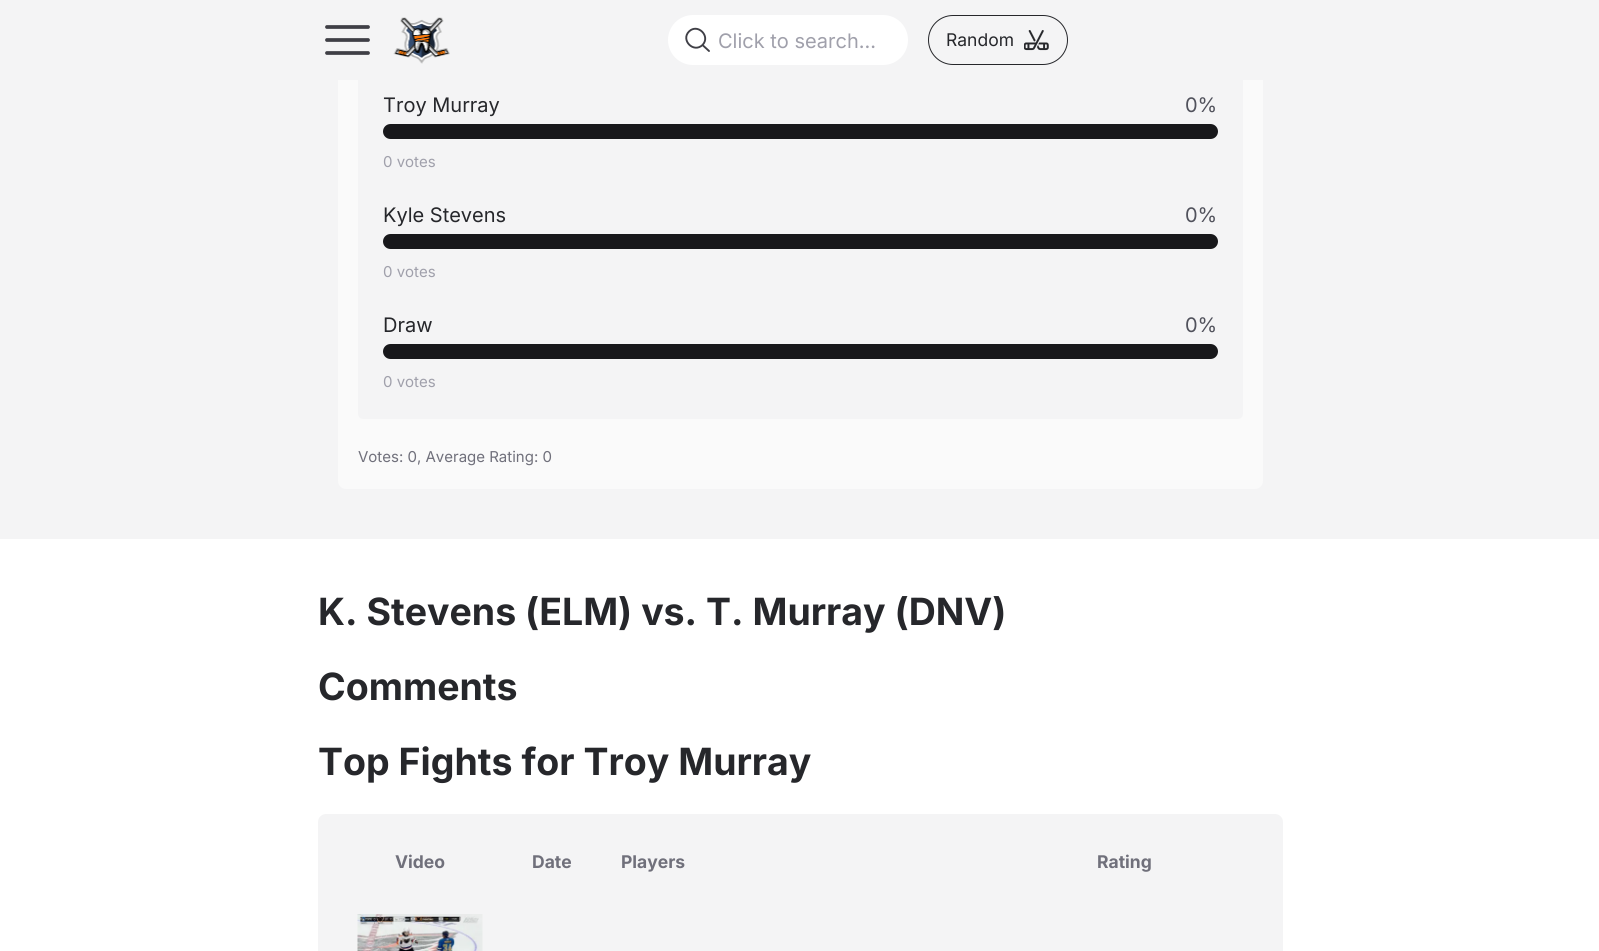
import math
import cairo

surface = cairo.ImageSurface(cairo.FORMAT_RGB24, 1599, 951)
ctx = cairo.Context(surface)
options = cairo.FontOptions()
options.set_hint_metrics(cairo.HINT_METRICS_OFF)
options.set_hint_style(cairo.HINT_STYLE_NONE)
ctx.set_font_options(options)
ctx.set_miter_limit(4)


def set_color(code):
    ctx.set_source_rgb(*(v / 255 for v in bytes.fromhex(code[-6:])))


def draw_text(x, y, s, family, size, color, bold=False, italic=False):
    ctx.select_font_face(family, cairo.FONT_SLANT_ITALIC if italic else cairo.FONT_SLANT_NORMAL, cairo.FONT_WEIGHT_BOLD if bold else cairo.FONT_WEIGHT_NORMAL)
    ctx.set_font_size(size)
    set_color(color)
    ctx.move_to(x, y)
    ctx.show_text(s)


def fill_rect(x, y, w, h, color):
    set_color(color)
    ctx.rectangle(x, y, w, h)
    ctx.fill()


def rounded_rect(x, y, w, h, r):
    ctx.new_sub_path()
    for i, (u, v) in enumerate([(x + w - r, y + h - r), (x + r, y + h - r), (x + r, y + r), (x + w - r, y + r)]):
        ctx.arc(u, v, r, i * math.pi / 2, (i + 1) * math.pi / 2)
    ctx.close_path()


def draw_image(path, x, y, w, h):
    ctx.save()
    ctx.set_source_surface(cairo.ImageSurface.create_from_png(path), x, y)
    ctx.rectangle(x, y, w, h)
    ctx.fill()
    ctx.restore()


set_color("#ffffff")
ctx.paint()
fill_rect(0, 80, 1599, 459, "#f4f4f5")
set_color("#fafafa")
rounded_rect(338, -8, 925, 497, 8)
ctx.fill()
set_color("#f4f4f5")
rounded_rect(358, 64, 885, 355, 5)
ctx.fill()
fill_rect(0, 0, 1599, 80, "#f4f4f5")
ctx.new_path()
ctx.move_to(327, 27)
ctx.line_to(368, 27)
ctx.move_to(327, 40)
ctx.line_to(368, 40)
ctx.move_to(327, 53)
ctx.line_to(368, 53)
set_color("#3f3f46")
ctx.set_line_width(3.8)
ctx.set_line_cap(cairo.LINE_CAP_ROUND)
ctx.set_line_join(cairo.LINE_JOIN_ROUND)
ctx.stroke()
draw_image("assets/img1.png", 393, 17, 57, 47)
set_color("#ffffff")
rounded_rect(668, 15, 240, 50, 25)
ctx.fill()
ctx.new_path()
ctx.move_to(709, 51)
ctx.line_to(702.5, 45)
ctx.move_to(702.5, 45)
ctx.curve_to(711, 36, 697.5, 23, 689, 31.5)
ctx.curve_to(680.5, 40, 693.5, 53.5, 702.5, 45)
ctx.close_path()
set_color("#3f3f46")
ctx.set_line_width(1.9)
ctx.stroke()
draw_text(718, 48, "Click to search...", "Inter", 20, "#a0a0ab")
rounded_rect(928.5, 15.5, 139, 49, 24.5)
set_color("#26272b")
ctx.set_line_width(1)
ctx.set_line_cap(cairo.LINE_CAP_BUTT)
ctx.set_line_join(cairo.LINE_JOIN_MITER)
ctx.stroke()
draw_text(946, 46, "Random", "Inter", 17.5, "#26272b")
draw_image("assets/img2.png", 1024, 30, 25, 21)
draw_text(383, 112, "Troy Murray", "Inter", 20, "#26272b")
draw_text(1185, 112, "0%", "Inter", 20, "#51525c")
set_color("#18181b")
rounded_rect(383, 124, 835, 15, 7.5)
ctx.fill()
draw_text(383, 167, "0 votes", "Inter", 15, "#a0a0ab")
draw_text(383, 222, "Kyle Stevens", "Inter", 20, "#26272b")
draw_text(1185, 222, "0%", "Inter", 20, "#51525c")
set_color("#18181b")
rounded_rect(383, 234, 835, 15, 7.5)
ctx.fill()
draw_text(383, 277, "0 votes", "Inter", 15, "#a0a0ab")
draw_text(383, 332, "Draw", "Inter", 20, "#26272b")
draw_text(1185, 332, "0%", "Inter", 20, "#51525c")
set_color("#18181b")
rounded_rect(383, 344, 835, 15, 7.5)
ctx.fill()
draw_text(383, 387, "0 votes", "Inter", 15, "#a0a0ab")
draw_text(358, 462, "Votes: 0, Average Rating: 0", "Inter", 15, "#70707b")
draw_text(318, 625, "K. Stevens (ELM) vs. T. Murray (DNV)", "Inter", 37.5, "#26272b", bold=True)
draw_text(318, 700, "Comments", "Inter", 37.5, "#26272b", bold=True)
draw_text(318, 775, "Top Fights for Troy Murray", "Inter", 37.5, "#26272b", bold=True)
set_color("#f4f4f5")
rounded_rect(318, 814, 965, 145, 8)
ctx.fill()
draw_text(395, 868, "Video", "Inter", 17.5, "#70707b", bold=True)
draw_text(532, 868, "Date", "Inter", 17.5, "#70707b", bold=True)
draw_text(621, 868, "Players", "Inter", 17.5, "#70707b", bold=True)
draw_text(1097, 868, "Rating", "Inter", 17.5, "#70707b", bold=True)
draw_image("assets/img3.png", 357, 914, 126, 37)
surface.write_to_png("output.png")
